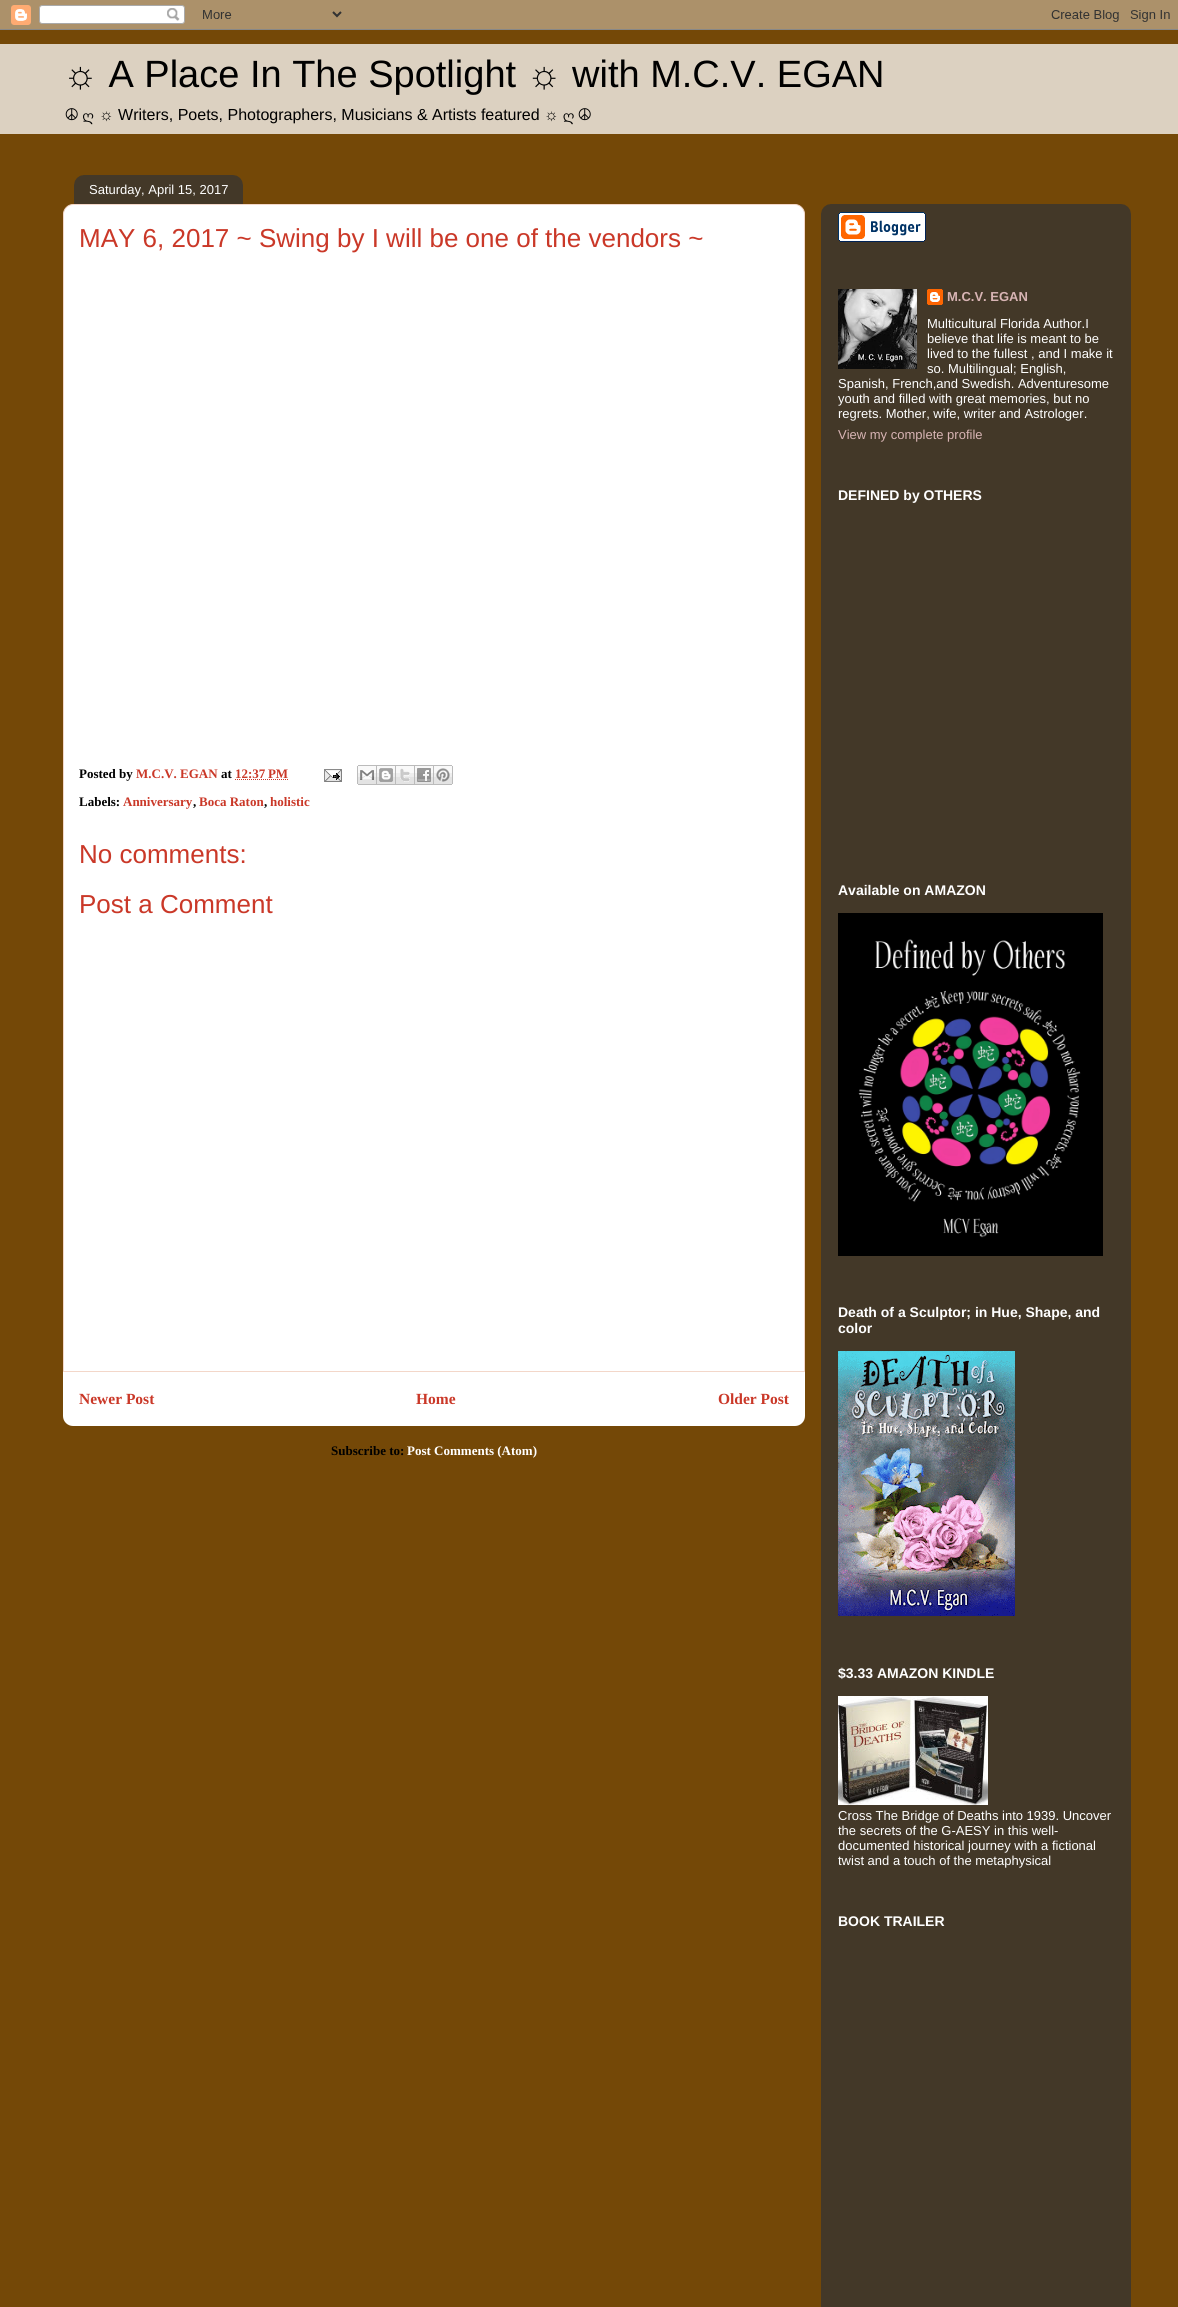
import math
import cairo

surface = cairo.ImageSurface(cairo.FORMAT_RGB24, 1178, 2307)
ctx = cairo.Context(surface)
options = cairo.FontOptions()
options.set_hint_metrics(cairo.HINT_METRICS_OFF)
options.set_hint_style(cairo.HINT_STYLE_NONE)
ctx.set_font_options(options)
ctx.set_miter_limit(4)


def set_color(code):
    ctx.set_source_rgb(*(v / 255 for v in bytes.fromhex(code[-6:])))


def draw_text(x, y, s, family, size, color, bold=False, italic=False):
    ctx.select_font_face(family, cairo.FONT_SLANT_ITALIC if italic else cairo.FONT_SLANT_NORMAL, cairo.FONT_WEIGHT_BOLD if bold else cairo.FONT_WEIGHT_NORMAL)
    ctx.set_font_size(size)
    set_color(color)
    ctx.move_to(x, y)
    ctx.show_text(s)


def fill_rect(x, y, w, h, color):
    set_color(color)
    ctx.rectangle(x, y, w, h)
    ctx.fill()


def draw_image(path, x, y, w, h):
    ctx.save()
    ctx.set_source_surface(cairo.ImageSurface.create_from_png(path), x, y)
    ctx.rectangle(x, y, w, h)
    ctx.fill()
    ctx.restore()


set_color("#744807")
ctx.paint()
draw_image("assets/img1.png", 0, 0, 1178, 30)
fill_rect(0, 44, 1178, 90, "#dcd1c1")
draw_text(63, 87, "☼ A Place In The Spotlight ☼ with M.C.V. EGAN", "Liberation Sans", 38, "#000000")
draw_text(65, 120, "☮ ღ", "FreeSans", 16, "#000000")
draw_text(99, 120, "☼ Writers, Poets, Photographers, Musicians & Artists featured ☼", "Liberation Sans", 16, "#000000")
draw_text(563, 120, "ღ", "FreeSans", 16, "#000000")
draw_text(578, 120, "☮", "FreeSans", 16, "#000000")
set_color("#ffffff")
ctx.new_path()
ctx.move_to(73, 204.5)
ctx.line_to(795, 204.5)
ctx.curve_to(800, 204.5, 804.5, 209, 804.5, 214)
ctx.line_to(804.5, 1371.5)
ctx.line_to(63.5, 1371.5)
ctx.line_to(63.5, 214)
ctx.curve_to(63.5, 209, 68, 204.5, 73, 204.5)
ctx.close_path()
ctx.fill_preserve()
set_color("#f3d7c9")
ctx.set_line_width(1)
ctx.stroke()
draw_image("assets/img2.png", 74, 175, 169, 29)
draw_text(89, 194, "Saturday, April 15, 2017", "Liberation Sans", 13, "#ffffff")
draw_text(79, 247, "MAY 6, 2017 ~ Swing by I will be one of the vendors ~", "Liberation Sans", 26, "#ca3828")
draw_text(79, 778, "Posted by", "Liberation Serif", 13, "#000000", bold=True)
draw_text(136, 778, "M.C.V. EGAN", "Liberation Serif", 13, "#ca3828", bold=True)
draw_text(221, 778, "at", "Liberation Serif", 13, "#000000", bold=True)
draw_text(235, 778, "12:37 PM", "Liberation Serif", 13, "#ca3828", bold=True)
ctx.new_path()
ctx.move_to(235, 779.5)
ctx.line_to(288, 779.5)
ctx.set_dash([1, 1])
ctx.stroke()
draw_image("assets/img3.png", 324, 769, 18, 13)
draw_image("assets/img4.png", 357, 765, 20, 20)
draw_image("assets/img5.png", 377, 765, 19, 20)
draw_image("assets/img6.png", 396, 765, 19, 20)
draw_image("assets/img7.png", 415, 765, 19, 20)
draw_image("assets/img8.png", 434, 765, 19, 20)
draw_text(79, 806, "Labels:", "Liberation Serif", 13, "#000000", bold=True)
draw_text(123, 806, "Anniversary", "Liberation Serif", 13, "#ca3828", bold=True)
draw_text(193, 806, ",", "Liberation Serif", 13, "#000000", bold=True)
draw_text(199, 806, "Boca Raton", "Liberation Serif", 13, "#ca3828", bold=True)
draw_text(264, 806, ",", "Liberation Serif", 13, "#000000", bold=True)
draw_text(270, 806, "holistic", "Liberation Serif", 13, "#ca3828", bold=True)
draw_text(79, 863, "No comments:", "Liberation Sans", 26, "#ca3828")
draw_text(79, 913, "Post a Comment", "Liberation Sans", 26, "#ca3828")
set_color("#ffffff")
ctx.new_path()
ctx.move_to(63, 1372)
ctx.line_to(805, 1372)
ctx.line_to(805, 1416)
ctx.curve_to(805, 1421.5, 800.5, 1426, 795, 1426)
ctx.line_to(73, 1426)
ctx.curve_to(67.5, 1426, 63, 1421.5, 63, 1416)
ctx.close_path()
ctx.fill()
draw_text(79, 1404, "Newer Post", "Liberation Serif", 15.5, "#ca3828", bold=True)
draw_text(416, 1404, "Home", "Liberation Serif", 15.5, "#ca3828", bold=True)
draw_text(718, 1404, "Older Post", "Liberation Serif", 15.5, "#ca3828", bold=True)
draw_text(331, 1455, "Subscribe to:", "Liberation Serif", 13, "#000000", bold=True)
draw_text(407, 1455, "Post Comments (Atom)", "Liberation Serif", 13, "#ffffff", bold=True)
draw_image("assets/img9.png", 821, 204, 310, 2103)
draw_image("assets/img10.png", 838, 212, 88, 30)
draw_image("assets/img11.png", 838, 289, 79, 80)
draw_image("assets/img12.png", 927, 289, 16, 16)
draw_text(947, 301, "M.C.V. EGAN", "Liberation Sans", 13, "#d8b4b4", bold=True)
draw_text(927, 328, "Multicultural Florida Author.I", "Liberation Sans", 13, "#ffffff")
draw_text(927, 343, "believe that life is meant to be", "Liberation Sans", 13, "#ffffff")
draw_text(927, 358, "lived to the fullest , and I make it", "Liberation Sans", 13, "#ffffff")
draw_text(927, 373, "so. Multilingual; English,", "Liberation Sans", 13, "#ffffff")
draw_text(838, 388, "Spanish, French,and Swedish. Adventuresome", "Liberation Sans", 13, "#ffffff")
draw_text(838, 403, "youth and filled with great memories, but no", "Liberation Sans", 13, "#ffffff")
draw_text(838, 418, "regrets. Mother, wife, writer and Astrologer.", "Liberation Sans", 13, "#ffffff")
draw_text(838, 439, "View my complete profile", "Liberation Sans", 13, "#d8b4b4")
draw_text(838, 500, "DEFINED by OTHERS", "Liberation Sans", 14, "#ffffff", bold=True)
draw_text(838, 895, "Available on AMAZON", "Liberation Sans", 14, "#ffffff", bold=True)
draw_image("assets/img13.png", 838, 913, 265, 343)
draw_text(838, 1317, "Death of a Sculptor; in Hue, Shape, and", "Liberation Sans", 14, "#ffffff", bold=True)
draw_text(838, 1333, "color", "Liberation Sans", 14, "#ffffff", bold=True)
draw_image("assets/img14.png", 838, 1351, 177, 265)
draw_text(838, 1678, "$3.33 AMAZON KINDLE", "Liberation Sans", 14, "#ffffff", bold=True)
draw_image("assets/img15.png", 838, 1696, 150, 109)
draw_text(838, 1820, "Cross The Bridge of Deaths into 1939. Uncover", "Liberation Sans", 13, "#ffffff")
draw_text(838, 1835, "the secrets of the G-AESY in this well-", "Liberation Sans", 13, "#ffffff")
draw_text(838, 1850, "documented historical journey with a fictional", "Liberation Sans", 13, "#ffffff")
draw_text(838, 1865, "twist and a touch of the metaphysical", "Liberation Sans", 13, "#ffffff")
draw_text(838, 1926, "BOOK TRAILER", "Liberation Sans", 14, "#ffffff", bold=True)
surface.write_to_png("output.png")
